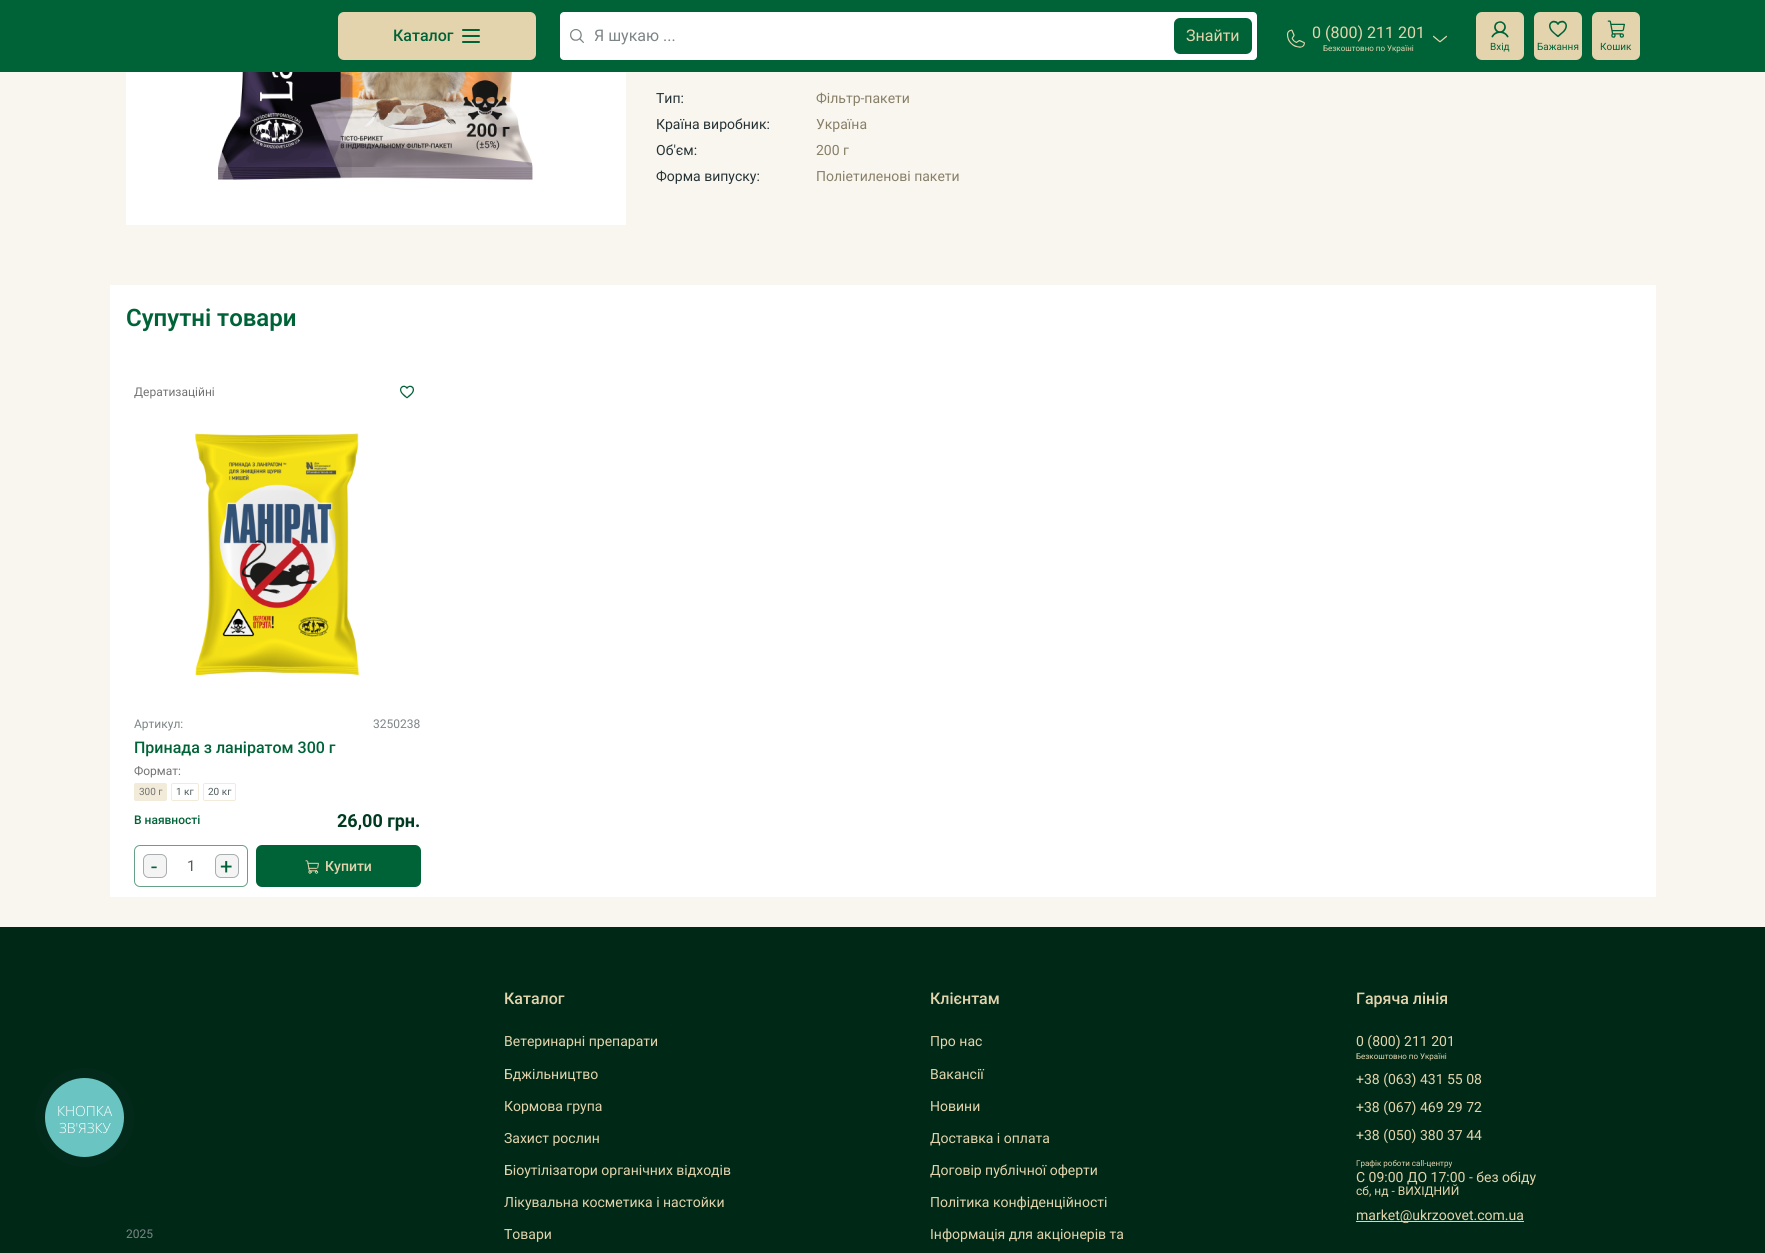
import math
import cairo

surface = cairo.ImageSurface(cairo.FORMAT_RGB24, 1765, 1253)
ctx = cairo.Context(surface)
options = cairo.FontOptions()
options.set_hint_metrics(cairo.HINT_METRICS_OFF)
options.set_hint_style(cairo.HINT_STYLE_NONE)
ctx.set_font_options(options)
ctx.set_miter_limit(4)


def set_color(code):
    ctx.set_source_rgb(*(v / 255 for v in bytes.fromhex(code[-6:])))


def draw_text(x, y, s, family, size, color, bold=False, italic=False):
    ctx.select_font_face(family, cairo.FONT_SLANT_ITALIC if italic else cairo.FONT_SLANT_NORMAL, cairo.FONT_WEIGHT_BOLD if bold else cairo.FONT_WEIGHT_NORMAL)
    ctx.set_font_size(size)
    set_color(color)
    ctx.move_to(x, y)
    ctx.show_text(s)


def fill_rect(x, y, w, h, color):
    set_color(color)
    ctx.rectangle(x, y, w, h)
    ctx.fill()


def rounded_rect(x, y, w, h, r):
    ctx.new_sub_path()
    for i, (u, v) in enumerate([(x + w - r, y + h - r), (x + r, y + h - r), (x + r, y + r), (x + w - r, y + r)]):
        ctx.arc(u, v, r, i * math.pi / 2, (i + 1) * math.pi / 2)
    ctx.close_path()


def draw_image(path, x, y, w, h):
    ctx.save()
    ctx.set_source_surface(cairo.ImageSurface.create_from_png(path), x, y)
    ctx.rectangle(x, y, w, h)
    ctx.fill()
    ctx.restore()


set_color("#f9f6ef")
ctx.paint()
fill_rect(0, 927, 1765, 326, "#002816")
set_color("#03291a")
ctx.arc(84.5, 1117.5, 49.5, 0, 2 * math.pi)
ctx.fill()
set_color("#6ac4c1")
ctx.arc(84.5, 1117.5, 39.5, 0, 2 * math.pi)
ctx.fill()
draw_text(57, 1116, "КНОПКА", "Open Sans Light", 14, "#ffffff")
draw_text(59, 1133, "ЗВ'ЯЗКУ", "Open Sans Light", 14, "#ffffff")
fill_rect(0, 0, 1765, 72, "#006338")
set_color("#e3d4ad")
rounded_rect(339, 13, 196, 46, 5)
ctx.fill_preserve()
ctx.stroke()
draw_text(393, 41, "Каталог", "Roboto Medium", 16, "#006338")
rounded_rect(462, 29, 18, 2, 1)
ctx.fill()
rounded_rect(462, 35, 18, 2, 1)
ctx.fill()
rounded_rect(462, 41, 18, 2, 1)
ctx.fill()
set_color("#ffffff")
rounded_rect(560, 12, 697, 48, 4)
ctx.fill()
draw_image("assets/img1.png", 570, 29, 14, 14)
draw_text(594, 41, "Я шукаю ...", "Roboto", 16, "#7d8586")
set_color("#006338")
rounded_rect(1174, 18, 78, 36, 6)
ctx.fill()
draw_text(1186, 41, "Знайти", "Roboto", 16, "#e3d4ad")
draw_image("assets/img2.png", 1286, 29, 19, 19)
draw_text(1312, 38, "0 (800) 211 201", "Roboto", 16, "#e3d4ad")
draw_text(1323, 51, "Безкоштовно по Україні", "Roboto", 8, "#e3d4ad")
draw_image("assets/img3.png", 1433, 35, 14, 8)
rounded_rect(1477, 13, 46, 46, 5)
ctx.fill_preserve()
ctx.stroke()
draw_image("assets/img4.png", 1491, 21, 18, 17)
draw_text(1490, 50, "Вхід", "Roboto", 10, "#006338")
set_color("#e3d4ad")
rounded_rect(1535, 13, 46, 46, 5)
ctx.fill_preserve()
ctx.stroke()
draw_image("assets/img5.png", 1549, 20, 18, 18)
draw_text(1537, 50, "Бажання", "Roboto", 10, "#006338")
set_color("#e3d4ad")
rounded_rect(1593, 13, 46, 46, 5)
ctx.fill_preserve()
ctx.stroke()
draw_image("assets/img6.png", 1607, 20, 18, 18)
draw_text(1600, 50, "Кошик", "Roboto", 10, "#006338")
fill_rect(126, 72, 500, 153, "#ffffff")
draw_image("assets/img7.png", 218, 72, 315, 108)
draw_text(656, 103, "Тип:", "Roboto", 14, "#263336")
draw_text(816, 103, "Фільтр-пакети", "Roboto", 14, "#887f68")
draw_text(656, 129, "Країна виробник:", "Roboto", 14, "#263336")
draw_text(816, 129, "Україна", "Roboto", 14, "#887f68")
draw_text(656, 155, "Об'єм:", "Roboto", 14, "#263336")
draw_text(816, 155, "200 г", "Roboto", 14, "#887f68")
draw_text(656, 181, "Форма випуску:", "Roboto", 14, "#263336")
draw_text(816, 181, "Поліетиленові пакети", "Roboto", 14, "#887f68")
fill_rect(110, 285, 1546, 612, "#ffffff")
draw_text(126, 326, "Супутні товари", "Roboto SemiBold", 24, "#006338")
draw_text(134, 396, "Дератизаційні", "Roboto", 12, "#737373")
draw_image("assets/img8.png", 400, 385, 14, 14)
draw_image("assets/img9.png", 195, 433, 164, 243)
draw_text(134, 728, "Артикул:", "Roboto", 12, "#7d8586")
draw_text(373, 728, "3250238", "Roboto", 12, "#7d8586")
draw_text(134, 753, "Принада з ланіратом 300 г", "Roboto Medium", 16, "#006338")
draw_text(134, 775, "Формат:", "Roboto", 12, "#737373")
set_color("#f2ebda")
rounded_rect(134.5, 783.5, 32, 17, 1.5)
ctx.fill_preserve()
ctx.set_line_width(1)
ctx.stroke()
draw_text(139, 795, "300 г", "Roboto", 10, "#737373")
rounded_rect(171.5, 783.5, 27, 17, 1.5)
set_color("#f2ebda")
ctx.stroke()
draw_text(176, 795, "1 кг", "Roboto", 10, "#515c5e")
rounded_rect(203.5, 783.5, 32, 17, 1.5)
set_color("#f2ebda")
ctx.stroke()
draw_text(208, 795, "20 кг", "Roboto", 10, "#515c5e")
draw_text(134, 824, "В наявності", "Roboto Medium", 12, "#006338")
draw_text(337, 827, "26,00 грн.", "Roboto", 18, "#003b21", bold=True)
rounded_rect(134.5, 845.5, 113, 41, 5.5)
set_color("#66a187")
ctx.stroke()
set_color("#f4f4f5")
rounded_rect(143.5, 854.5, 23, 23, 5.5)
ctx.fill_preserve()
set_color("#a8adaf")
ctx.stroke()
draw_text(151, 874, "-", "Roboto", 22, "#006338")
draw_text(187, 871, "1", "Roboto", 15, "#515c5e")
set_color("#f4f4f5")
rounded_rect(215.5, 854.5, 23, 23, 5.5)
ctx.fill_preserve()
set_color("#a8adaf")
ctx.stroke()
draw_text(220, 874, "+", "Roboto", 22, "#006338")
rounded_rect(256, 845, 165, 42, 6)
ctx.fill()
draw_image("assets/img10.png", 305, 860, 14, 14)
draw_text(325, 871, "Купити", "Roboto Medium", 14, "#e3d4ad")
draw_text(126, 1238, "2025", "Roboto", 12, "#7d8586")
draw_text(504, 1004, "Каталог", "Roboto Medium", 16, "#e3d4ad")
draw_text(504, 1046, "Ветеринарні препарати", "Roboto", 14, "#e3d4ad")
draw_text(504, 1079, "Бджільництво", "Roboto", 14, "#e3d4ad")
draw_text(504, 1111, "Кормова група", "Roboto", 14, "#e3d4ad")
draw_text(504, 1143, "Захист рослин", "Roboto", 14, "#e3d4ad")
draw_text(504, 1175, "Біоутілізатори органічних відходів", "Roboto", 14, "#e3d4ad")
draw_text(504, 1207, "Лікувальна косметика і настойки", "Roboto", 14, "#e3d4ad")
draw_text(504, 1239, "Товари", "Roboto", 14, "#e3d4ad")
draw_text(930, 1004, "Клієнтам", "Roboto Medium", 16, "#e3d4ad")
draw_text(930, 1046, "Про нас", "Roboto", 14, "#e3d4ad")
draw_text(930, 1079, "Вакансії", "Roboto", 14, "#e3d4ad")
draw_text(930, 1111, "Новини", "Roboto", 14, "#e3d4ad")
draw_text(930, 1143, "Доставка і оплата", "Roboto", 14, "#e3d4ad")
draw_text(930, 1175, "Договір публічної оферти", "Roboto", 14, "#e3d4ad")
draw_text(930, 1207, "Політика конфіденційності", "Roboto", 14, "#e3d4ad")
draw_text(930, 1239, "Інформація для акціонерів та", "Roboto", 14, "#e3d4ad")
draw_text(1356, 1004, "Гаряча лінія", "Roboto Medium", 16, "#e3d4ad")
draw_text(1356, 1046, "0 (800) 211 201", "Roboto", 14, "#e3d4ad")
draw_text(1356, 1059, "Безкоштовно по Україні", "Roboto", 8, "#e3d4ad")
draw_text(1356, 1084, "+38 (063) 431 55 08", "Roboto", 14, "#e3d4ad")
draw_text(1356, 1112, "+38 (067) 469 29 72", "Roboto", 14, "#e3d4ad")
draw_text(1356, 1140, "+38 (050) 380 37 44", "Roboto", 14, "#e3d4ad")
draw_text(1356, 1166, "Графік роботи call-центру", "Roboto", 8, "#e3d4ad")
draw_text(1356, 1182, "С 09:00 ДО 17:00 - без обіду", "Roboto", 14, "#e3d4ad")
draw_text(1356, 1195, "сб, нд - ВИХІДНИЙ", "Roboto", 12, "#e3d4ad")
fill_rect(1356, 1221, 168, 1, "#e3d4ad")
draw_text(1356, 1220, "market@ukrzoovet.com.ua", "Roboto", 14, "#e3d4ad")
surface.write_to_png("output.png")
